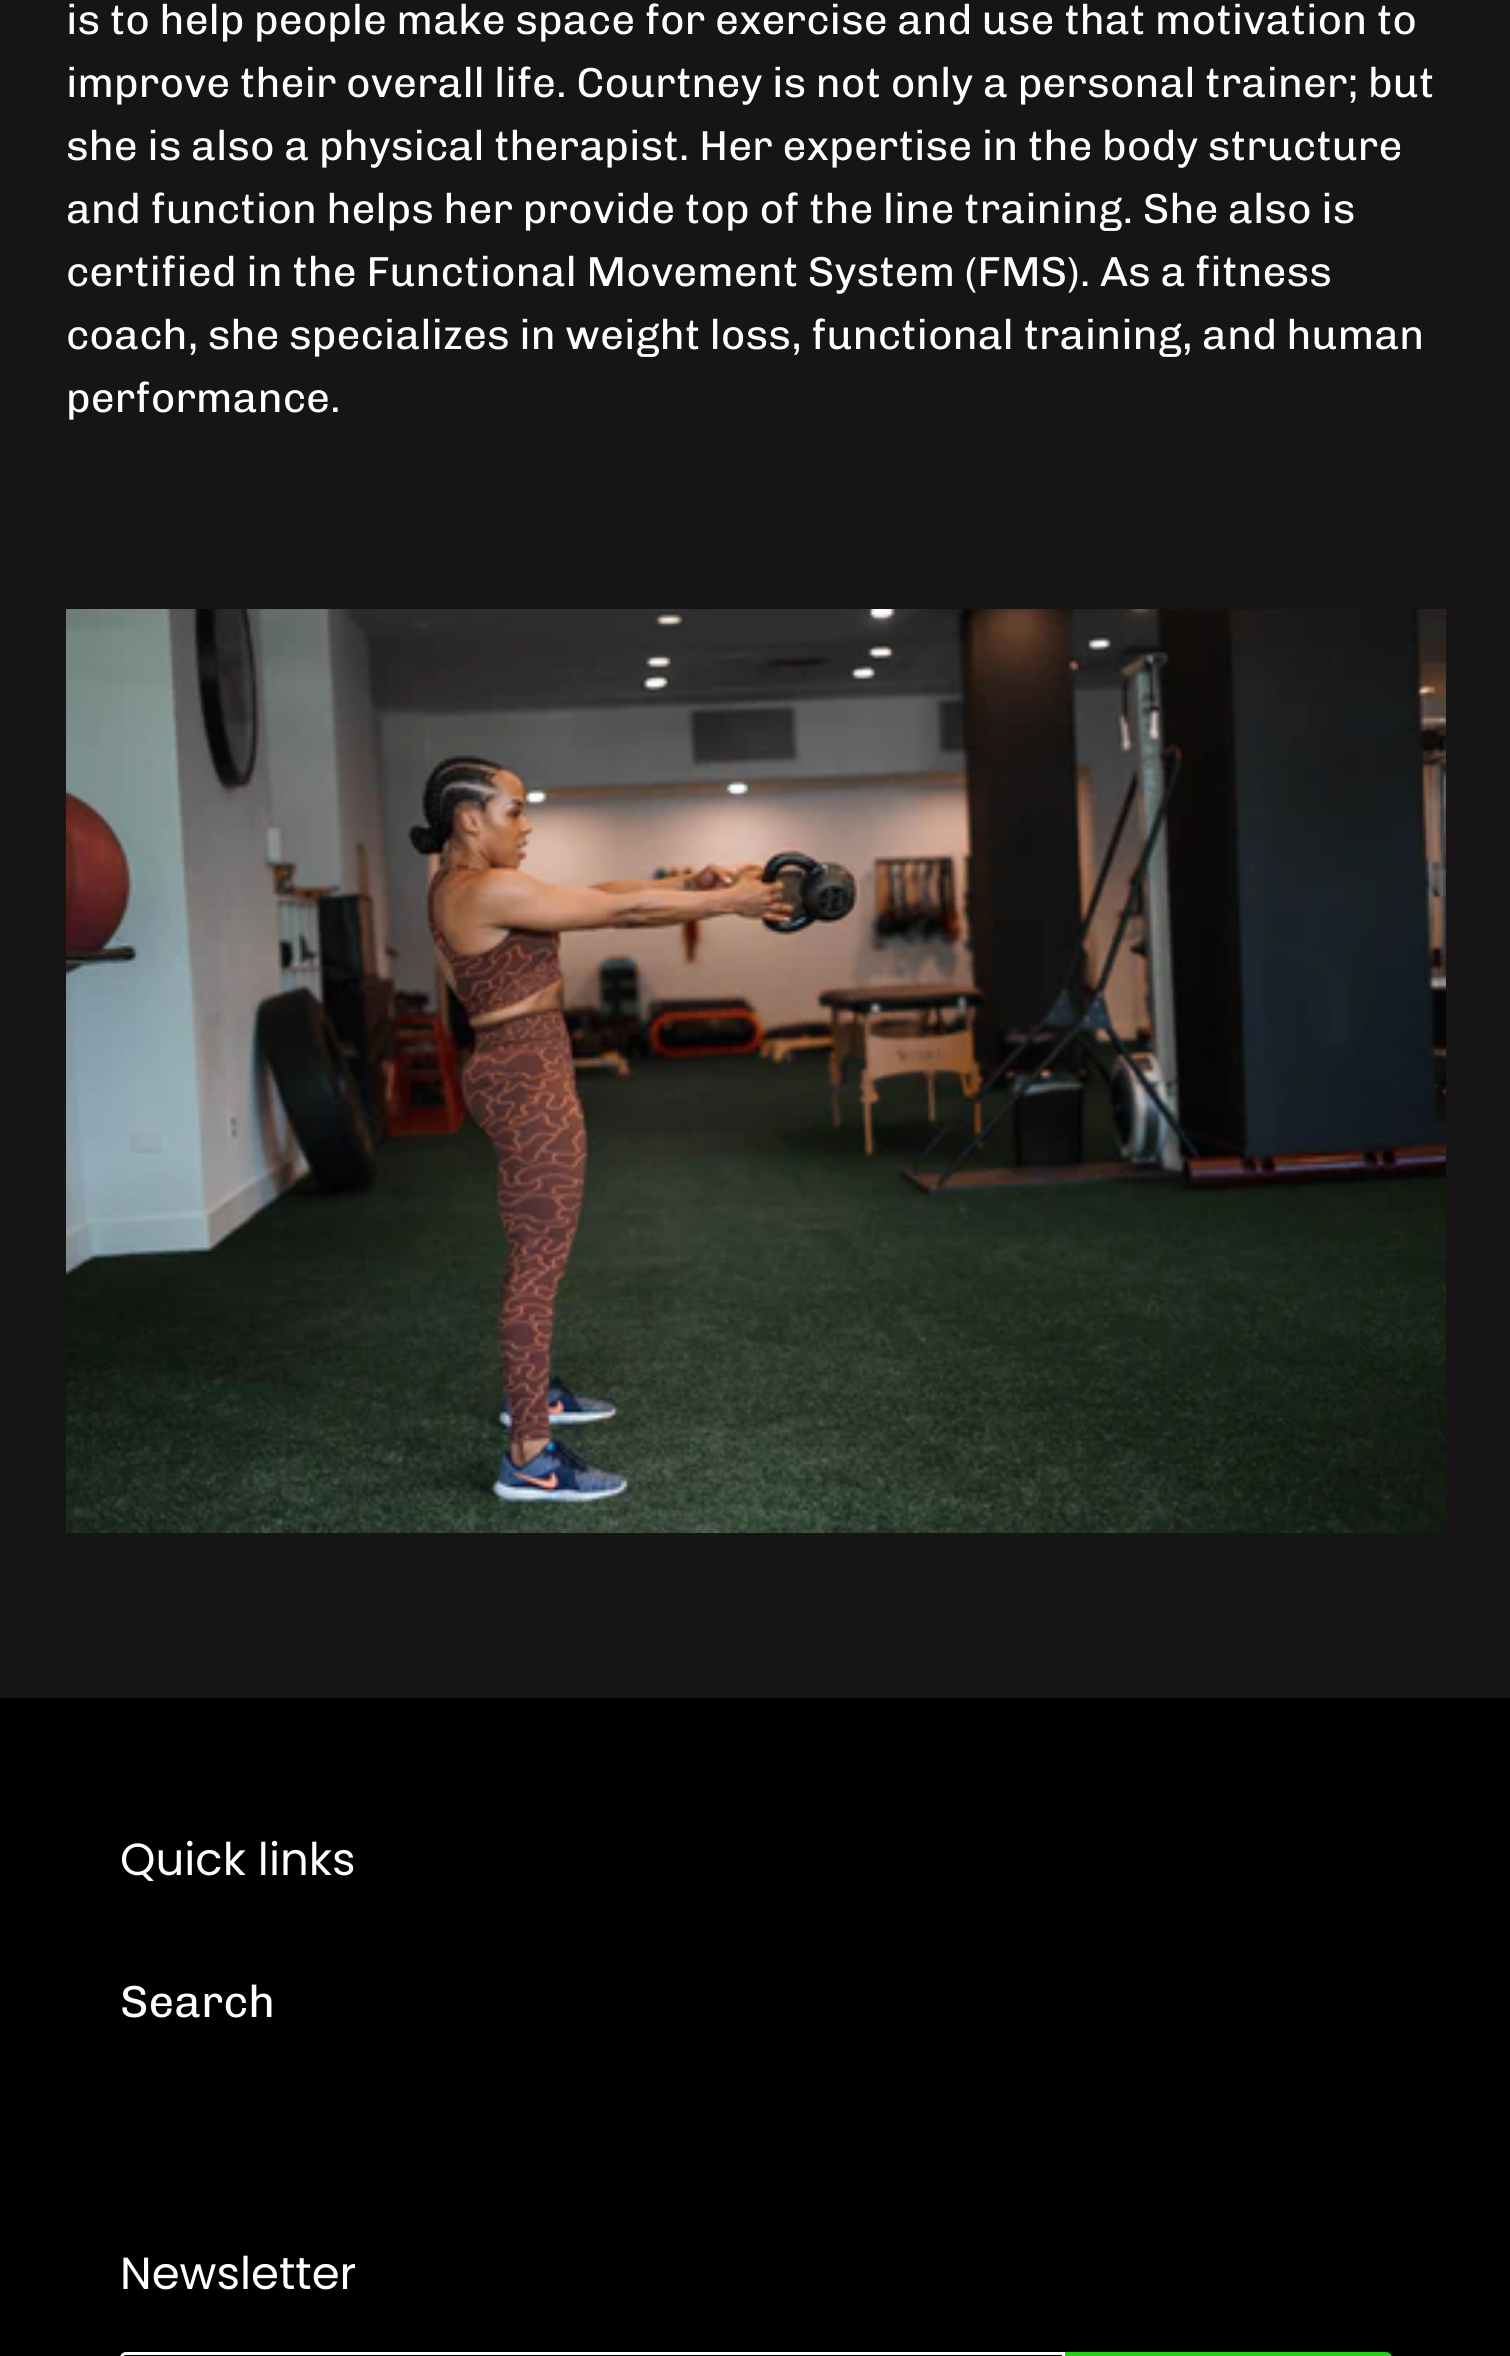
import math
import cairo

surface = cairo.ImageSurface(cairo.FORMAT_RGB24, 1510, 2356)
ctx = cairo.Context(surface)
options = cairo.FontOptions()
options.set_hint_metrics(cairo.HINT_METRICS_OFF)
options.set_hint_style(cairo.HINT_STYLE_NONE)
ctx.set_font_options(options)
ctx.set_miter_limit(4)


def set_color(code):
    ctx.set_source_rgb(*(v / 255 for v in bytes.fromhex(code[-6:])))


def draw_text(x, y, s, family, size, color, bold=False, italic=False):
    ctx.select_font_face(family, cairo.FONT_SLANT_ITALIC if italic else cairo.FONT_SLANT_NORMAL, cairo.FONT_WEIGHT_BOLD if bold else cairo.FONT_WEIGHT_NORMAL)
    ctx.set_font_size(size)
    set_color(color)
    ctx.move_to(x, y)
    ctx.show_text(s)


def fill_rect(x, y, w, h, color):
    set_color(color)
    ctx.rectangle(x, y, w, h)
    ctx.fill()


def draw_image(path, x, y, w, h):
    ctx.save()
    ctx.set_source_surface(cairo.ImageSurface.create_from_png(path), x, y)
    ctx.rectangle(x, y, w, h)
    ctx.fill()
    ctx.restore()


set_color("#161414")
ctx.paint()
draw_text(66, 34, "is to help people make space for exercise and use that motivation to", "Chivo", 42, "#ffffff")
draw_text(66, 97, "improve their overall life. Courtney is not only a personal trainer; but", "Chivo", 42, "#ffffff")
draw_text(66, 160, "she is also a physical therapist. Her expertise in the body structure", "Chivo", 42, "#ffffff")
draw_text(66, 223, "and function helps her provide top of the line training. She also is", "Chivo", 42, "#ffffff")
draw_text(66, 286, "certified in the Functional Movement System (FMS). As a fitness", "Chivo", 42, "#ffffff")
draw_text(66, 349, "coach, she specializes in weight loss, functional training, and human", "Chivo", 42, "#ffffff")
draw_text(66, 412, "performance.", "Chivo", 42, "#ffffff")
draw_image("assets/img1.png", 66, 609, 1380, 924)
fill_rect(0, 1698, 1510, 658, "#000000")
draw_text(120, 1875, "Quick links", "Poppins", 45, "#ffffff")
draw_text(120, 2017, "Search", "Chivo", 45, "#ffffff")
draw_text(120, 2289, "Newsletter", "Poppins", 45, "#ffffff")
ctx.new_path()
ctx.move_to(126, 2353.5)
ctx.line_to(1063.5, 2353.5)
ctx.line_to(1063.5, 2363.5)
ctx.line_to(126, 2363.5)
ctx.curve_to(123.5, 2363.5, 121.5, 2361.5, 121.5, 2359)
ctx.line_to(121.5, 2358)
ctx.curve_to(121.5, 2355.5, 123.5, 2353.5, 126, 2353.5)
ctx.close_path()
set_color("#fafafa")
ctx.set_line_width(3)
ctx.stroke()
set_color("#24ce16")
ctx.new_path()
ctx.move_to(1065, 2352)
ctx.line_to(1386, 2352)
ctx.curve_to(1389.5, 2352, 1392, 2354.5, 1392, 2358)
ctx.line_to(1392, 2356)
ctx.curve_to(1392, 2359.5, 1389.5, 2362, 1386, 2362)
ctx.line_to(1065, 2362)
ctx.close_path()
ctx.fill()
surface.write_to_png("output.png")
